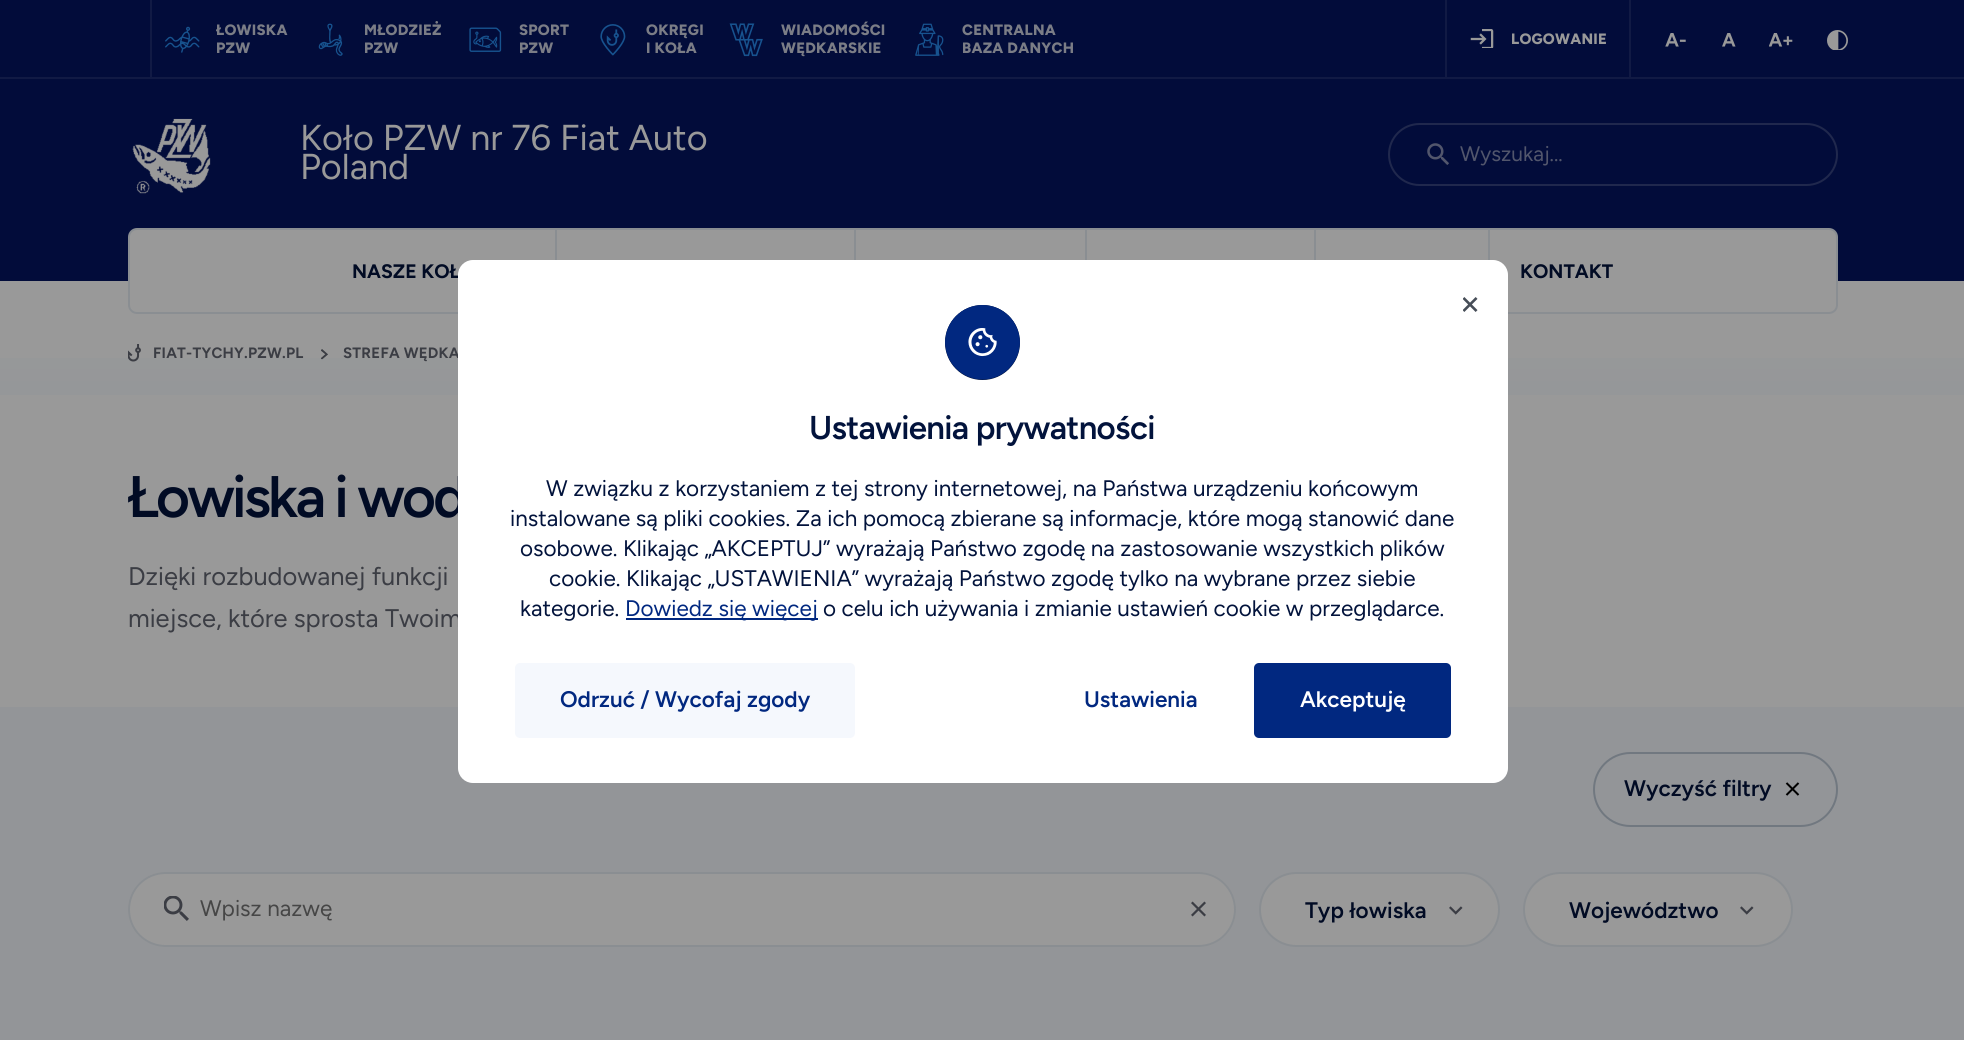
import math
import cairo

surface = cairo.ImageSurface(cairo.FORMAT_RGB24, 1964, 1040)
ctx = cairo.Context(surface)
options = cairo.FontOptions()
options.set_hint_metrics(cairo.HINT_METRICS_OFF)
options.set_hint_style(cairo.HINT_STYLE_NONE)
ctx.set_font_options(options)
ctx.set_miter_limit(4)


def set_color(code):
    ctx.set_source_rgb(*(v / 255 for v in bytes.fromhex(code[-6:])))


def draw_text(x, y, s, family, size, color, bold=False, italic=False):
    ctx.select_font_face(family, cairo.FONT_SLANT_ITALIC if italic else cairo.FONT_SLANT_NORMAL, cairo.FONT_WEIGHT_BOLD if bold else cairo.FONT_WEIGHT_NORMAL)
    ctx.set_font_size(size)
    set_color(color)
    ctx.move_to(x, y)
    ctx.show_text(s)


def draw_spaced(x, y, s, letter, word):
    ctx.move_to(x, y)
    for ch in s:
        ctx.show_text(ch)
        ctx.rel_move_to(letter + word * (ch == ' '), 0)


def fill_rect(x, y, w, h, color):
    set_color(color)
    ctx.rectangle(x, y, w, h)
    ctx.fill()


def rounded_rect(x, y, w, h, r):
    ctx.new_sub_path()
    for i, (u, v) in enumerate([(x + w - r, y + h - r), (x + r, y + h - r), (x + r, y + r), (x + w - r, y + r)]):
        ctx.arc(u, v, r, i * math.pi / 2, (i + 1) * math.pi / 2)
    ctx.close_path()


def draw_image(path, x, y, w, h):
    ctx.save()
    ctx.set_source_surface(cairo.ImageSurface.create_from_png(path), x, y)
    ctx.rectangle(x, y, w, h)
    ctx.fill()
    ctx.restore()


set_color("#999999")
ctx.paint()
fill_rect(0, 0, 1964, 281, "#020c3a")
fill_rect(0, 77, 1964, 2, "#111a44")
fill_rect(150, 0, 2, 77, "#111a44")
draw_image("assets/img1.png", 165, 26, 35, 27)
ctx.select_font_face("Figtree ExtraBold")
ctx.set_font_size(15)
set_color("#7b7d86")
draw_spaced(216, 35, "ŁOWISKA", 0.25, 0)
draw_spaced(216, 53, "PZW", 0.25, 0)
draw_image("assets/img2.png", 318, 23, 25, 33)
draw_spaced(364, 35, "MŁODZIEŻ", 0.25, 0)
draw_spaced(364, 53, "PZW", 0.25, 0)
draw_image("assets/img3.png", 469, 27, 33, 25)
draw_spaced(519, 35, "SPORT", 0.25, 0)
draw_spaced(519, 53, "PZW", 0.25, 0)
draw_image("assets/img4.png", 600, 24, 26, 32)
draw_spaced(646, 35, "OKRĘGI", 0.25, 0)
draw_spaced(646, 53, "I KOŁA", 0.25, 0)
draw_image("assets/img5.png", 729, 23, 34, 34)
draw_spaced(781, 35, "WIADOMOŚCI", 0.25, 0)
draw_spaced(781, 53, "WĘDKARSKIE", 0.25, 0)
draw_image("assets/img6.png", 915, 23, 29, 33)
draw_spaced(962, 35, "CENTRALNA", 0.25, 0)
draw_spaced(962, 53, "BAZA DANYCH", 0.25, 0)
fill_rect(1445, 0, 2, 77, "#111a44")
fill_rect(1629, 0, 2, 77, "#111a44")
draw_image("assets/img7.png", 1470, 29, 24, 19)
set_color("#999999")
draw_spaced(1511, 44, "LOGOWANIE", 0.25, 0)
draw_image("assets/img8.png", 1665, 33, 21, 14)
draw_image("assets/img9.png", 1722, 33, 14, 14)
draw_image("assets/img10.png", 1769, 33, 24, 14)
draw_image("assets/img11.png", 1827, 30, 21, 20)
draw_image("assets/img12.png", 132, 118, 79, 76)
draw_text(300, 150, "Koło PZW nr 76 Fiat Auto", "Figtree", 36, "#999999")
draw_text(300, 179, "Poland", "Figtree", 36, "#999999")
draw_image("assets/img13.png", 1427, 143, 22, 22)
rounded_rect(1389, 124, 448, 61, 30.5)
set_color("#20284d")
ctx.stroke()
draw_text(1460, 161, "Wyszukaj...", "Figtree", 21, "#52566c")
set_color("#999999")
rounded_rect(129, 229, 1708, 84, 8)
ctx.fill_preserve()
set_color("#8a8e92")
ctx.stroke()
fill_rect(854, 230, 2, 30, "#8a8e92")
fill_rect(1085, 230, 2, 30, "#8a8e92")
fill_rect(1314, 230, 2, 30, "#8a8e92")
fill_rect(1488, 230, 2, 30, "#8a8e92")
fill_rect(555, 230, 2, 30, "#8a8e92")
draw_text(352, 278, "NASZE KOŁ", "Figtree", 19.5, "#010b24", bold=True)
draw_text(1520, 278, "KONTAKT", "Figtree", 19.5, "#010b24", bold=True)
gradient = cairo.LinearGradient(983, 259, 983, 395)
gradient.add_color_stop_rgba(0, 0.6, 0.6, 0.6, 1)
gradient.add_color_stop_rgba(0.28, 0.6, 0.6, 0.6, 1)
gradient.add_color_stop_rgba(1, 0.584, 0.592, 0.6, 1)
ctx.set_source(gradient)
ctx.rectangle(0, 358, 1964, 37)
ctx.fill()
draw_image("assets/img14.png", 128, 344, 13, 18)
ctx.set_font_size(15)
set_color("#3b3d44")
draw_spaced(153, 358, "FIAT-TYCHY.PZW.PL", 0.25, 0)
draw_image("assets/img15.png", 321, 349, 7, 11)
draw_spaced(343, 358, "STREFA WĘDKA", 0.25, 0)
ctx.select_font_face("Figtree SemiBold")
ctx.set_font_size(58.5)
set_color("#010b24")
draw_spaced(128, 517, "Łowiska i wod", -2.9, 0)
draw_text(128, 585, "Dzięki rozbudowanej funkcji", "Figtree", 25.5, "#3b3d44")
draw_text(128, 627, "miejsce, które sprosta Twoim", "Figtree", 25.5, "#3b3d44")
fill_rect(0, 707, 1964, 333, "#939598")
rounded_rect(1594, 753, 243, 73, 36.5)
set_color("#717880")
ctx.stroke()
draw_text(1624, 796, "Wyczyść filtry", "Figtree SemiBold", 22.5, "#010b24")
draw_image("assets/img16.png", 1785, 782, 15, 14)
set_color("#999999")
rounded_rect(128, 872, 1108, 75, 37.5)
ctx.fill()
draw_image("assets/img17.png", 164, 896, 25, 25)
rounded_rect(129, 873, 1106, 73, 36.5)
set_color("#8a8e92")
ctx.stroke()
draw_text(200, 916, "Wpisz nazwę", "Figtree", 22.5, "#464646")
draw_image("assets/img18.png", 1191, 901, 15, 16)
set_color("#999999")
rounded_rect(1260, 873, 239, 73, 36.5)
ctx.fill_preserve()
set_color("#8a8e92")
ctx.stroke()
draw_image("assets/img19.png", 1449, 906, 14, 9)
draw_text(1305, 918, "Typ łowiska", "Figtree SemiBold", 22.5, "#010b24")
set_color("#999999")
rounded_rect(1524, 873, 268, 73, 36.5)
ctx.fill_preserve()
set_color("#8a8e92")
ctx.stroke()
draw_image("assets/img19.png", 1740, 906, 14, 9)
draw_text(1569, 918, "Województwo", "Figtree SemiBold", 22.5, "#010b24")
set_color("#ffffff")
rounded_rect(458, 260, 1050, 523, 15)
ctx.fill()
draw_image("assets/img20.png", 1463, 297, 15, 15)
set_color("#02133c")
ctx.arc(982.5, 342.5, 37.5, 0, 2 * math.pi)
ctx.fill()
draw_image("assets/img21.png", 945, 305, 75, 75)
ctx.set_font_size(33)
draw_spaced(809, 439, "Ustawienia prywatności", -0.7, 0)
draw_text(546, 496, "W związku z korzystaniem z tej strony internetowej, na Państwa urządzeniu końcowym", "Figtree", 22.5, "#02133c")
draw_text(510, 526, "instalowane są pliki cookies. Za ich pomocą zbierane są informacje, które mogą stanowić dane", "Figtree", 22.5, "#02133c")
draw_text(520, 556, "osobowe. Klikając „AKCEPTUJ” wyrażają Państwo zgodę na zastosowanie wszystkich plików", "Figtree", 22.5, "#02133c")
draw_text(549, 586, "cookie. Klikając „USTAWIENIA” wyrażają Państwo zgodę tylko na wybrane przez siebie", "Figtree", 22.5, "#02133c")
draw_text(520, 616, "kategorie.", "Figtree", 22.5, "#02133c")
fill_rect(626, 618, 192, 2, "#012880")
draw_text(625, 616, "Dowiedz się więcej", "Figtree", 22.5, "#012880")
draw_text(823, 616, "o celu ich używania i zmianie ustawień cookie w przeglądarce.", "Figtree", 22.5, "#02133c")
set_color("#f5f8fd")
rounded_rect(515, 663, 340, 75, 5)
ctx.fill()
draw_text(560, 707, "Odrzuć / Wycofaj zgody", "Figtree SemiBold", 22.5, "#012880")
draw_text(1084, 707, "Ustawienia", "Figtree SemiBold", 22.5, "#012880")
rounded_rect(1254, 663, 197, 75, 5)
ctx.fill()
draw_text(1300, 707, "Akceptuję", "Figtree SemiBold", 22.5, "#ffffff")
surface.write_to_png("output.png")
